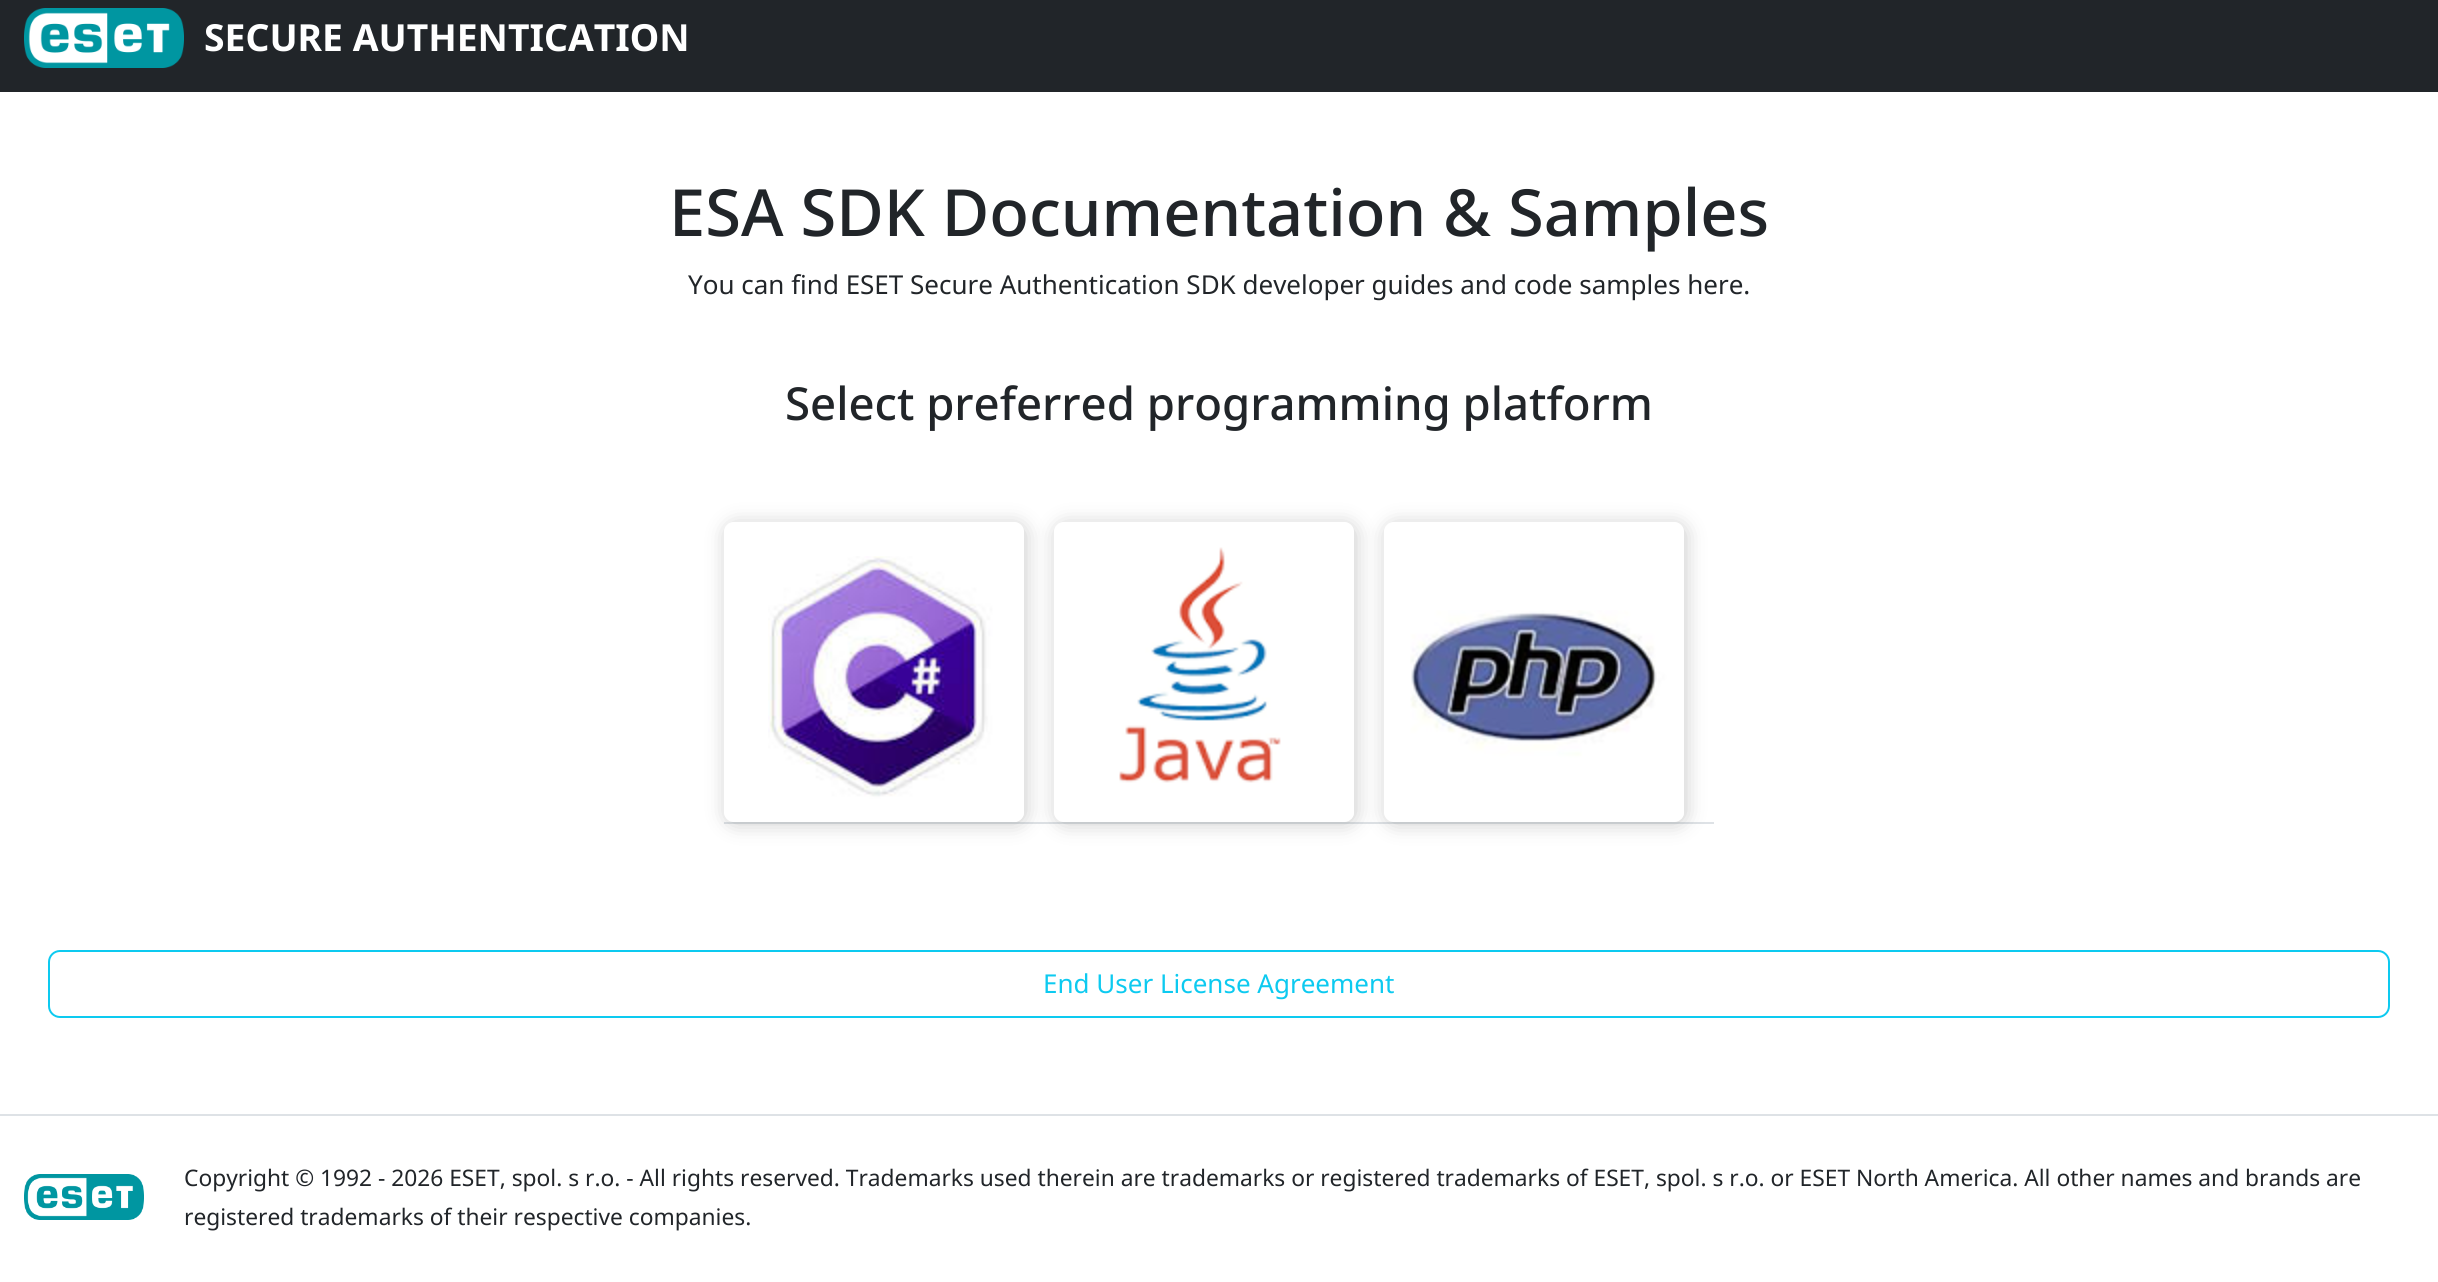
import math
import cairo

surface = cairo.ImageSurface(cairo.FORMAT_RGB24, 2438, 1282)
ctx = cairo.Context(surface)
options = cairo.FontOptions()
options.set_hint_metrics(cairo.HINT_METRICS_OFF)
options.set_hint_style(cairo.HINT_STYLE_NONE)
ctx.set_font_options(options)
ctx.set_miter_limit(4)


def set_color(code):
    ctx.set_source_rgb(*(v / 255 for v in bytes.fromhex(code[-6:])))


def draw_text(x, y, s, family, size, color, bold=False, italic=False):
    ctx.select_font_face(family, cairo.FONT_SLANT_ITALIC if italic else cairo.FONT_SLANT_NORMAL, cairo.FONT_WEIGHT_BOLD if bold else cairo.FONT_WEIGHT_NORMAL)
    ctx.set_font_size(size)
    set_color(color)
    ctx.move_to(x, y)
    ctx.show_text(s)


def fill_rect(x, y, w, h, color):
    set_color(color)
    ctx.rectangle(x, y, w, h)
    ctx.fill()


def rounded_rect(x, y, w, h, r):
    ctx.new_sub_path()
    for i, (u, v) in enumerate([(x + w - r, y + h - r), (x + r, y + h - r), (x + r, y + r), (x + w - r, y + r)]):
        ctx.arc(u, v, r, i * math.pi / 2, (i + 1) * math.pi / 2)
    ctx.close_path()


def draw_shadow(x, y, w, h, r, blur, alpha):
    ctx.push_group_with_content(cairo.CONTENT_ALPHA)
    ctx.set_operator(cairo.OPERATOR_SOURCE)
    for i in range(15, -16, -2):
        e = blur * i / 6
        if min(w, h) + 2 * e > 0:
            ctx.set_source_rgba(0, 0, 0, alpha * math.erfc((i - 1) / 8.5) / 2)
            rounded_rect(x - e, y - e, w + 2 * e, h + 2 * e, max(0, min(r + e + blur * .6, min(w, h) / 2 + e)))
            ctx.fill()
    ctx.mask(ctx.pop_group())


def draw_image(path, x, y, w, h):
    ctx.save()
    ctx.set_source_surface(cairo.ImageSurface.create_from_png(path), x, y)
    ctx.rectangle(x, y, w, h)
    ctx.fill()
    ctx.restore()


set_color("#ffffff")
ctx.paint()
fill_rect(0, 0, 2438, 92, "#212529")
draw_image("assets/img1.png", 24, 8, 160, 60)
draw_text(204, 51, "SECURE AUTHENTICATION", "Noto Sans", 37.3, "#ffffff", bold=True)
draw_text(669, 236, "ESA SDK Documentation & Samples", "Noto Sans Medium", 65, "#212529")
draw_text(688, 294, "You can find ESET Secure Authentication SDK developer guides and code samples here.", "Noto Sans", 26, "#212529")
draw_text(785, 420, "Select preferred programming platform", "Noto Sans Medium", 45.5, "#212529")
fill_rect(724, 822, 990, 2, "#dee2e6")
ctx.save()
ctx.set_fill_rule(cairo.FILL_RULE_EVEN_ODD)
ctx.new_path()
ctx.move_to(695, 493)
ctx.line_to(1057, 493)
ctx.line_to(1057, 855)
ctx.line_to(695, 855)
ctx.close_path()
ctx.move_to(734, 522)
ctx.line_to(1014, 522)
ctx.curve_to(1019.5, 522, 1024, 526.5, 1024, 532)
ctx.line_to(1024, 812)
ctx.curve_to(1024, 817.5, 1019.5, 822, 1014, 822)
ctx.line_to(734, 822)
ctx.curve_to(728.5, 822, 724, 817.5, 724, 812)
ctx.line_to(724, 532)
ctx.curve_to(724, 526.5, 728.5, 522, 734, 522)
ctx.close_path()
ctx.clip()
set_color("#323232")
draw_shadow(726, 524, 300, 300, 10, 10, 0.25)
ctx.restore()
draw_image("assets/img2.png", 768, 556, 256, 266)
ctx.save()
ctx.set_fill_rule(cairo.FILL_RULE_EVEN_ODD)
ctx.new_path()
ctx.move_to(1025, 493)
ctx.line_to(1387, 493)
ctx.line_to(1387, 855)
ctx.line_to(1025, 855)
ctx.close_path()
ctx.move_to(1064, 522)
ctx.line_to(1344, 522)
ctx.curve_to(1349.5, 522, 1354, 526.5, 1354, 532)
ctx.line_to(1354, 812)
ctx.curve_to(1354, 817.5, 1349.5, 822, 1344, 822)
ctx.line_to(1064, 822)
ctx.curve_to(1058.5, 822, 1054, 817.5, 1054, 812)
ctx.line_to(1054, 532)
ctx.curve_to(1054, 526.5, 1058.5, 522, 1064, 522)
ctx.close_path()
ctx.clip()
set_color("#323232")
draw_shadow(1056, 524, 300, 300, 10, 10, 0.25)
ctx.restore()
draw_image("assets/img3.png", 1119, 547, 235, 272)
ctx.save()
ctx.set_fill_rule(cairo.FILL_RULE_EVEN_ODD)
ctx.new_path()
ctx.move_to(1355, 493)
ctx.line_to(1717, 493)
ctx.line_to(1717, 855)
ctx.line_to(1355, 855)
ctx.close_path()
ctx.move_to(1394, 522)
ctx.line_to(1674, 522)
ctx.curve_to(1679.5, 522, 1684, 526.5, 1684, 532)
ctx.line_to(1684, 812)
ctx.curve_to(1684, 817.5, 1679.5, 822, 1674, 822)
ctx.line_to(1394, 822)
ctx.curve_to(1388.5, 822, 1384, 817.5, 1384, 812)
ctx.line_to(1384, 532)
ctx.curve_to(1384, 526.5, 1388.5, 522, 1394, 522)
ctx.close_path()
ctx.clip()
set_color("#323232")
draw_shadow(1386, 524, 300, 300, 10, 10, 0.25)
ctx.restore()
draw_image("assets/img4.png", 1410, 610, 274, 209)
rounded_rect(49, 951, 2340, 66, 11)
set_color("#0dcaf0")
ctx.stroke()
draw_text(1043, 993, "End User License Agreement", "Noto Sans", 26, "#0dcaf0")
fill_rect(0, 1114, 2438, 2, "#dee2e6")
draw_image("assets/img5.png", 24, 1174, 120, 46)
draw_text(184, 1186, "Copyright © 1992 - 2026 ESET, spol. s r.o. - All rights reserved. Trademarks used therein are trademarks or registered trademarks of ESET, spol. s r.o. or ESET North America. All other names and brands are", "Noto Sans", 22.75, "#212529")
draw_text(184, 1225, "registered trademarks of their respective companies.", "Noto Sans", 22.75, "#212529")
surface.write_to_png("output.png")
